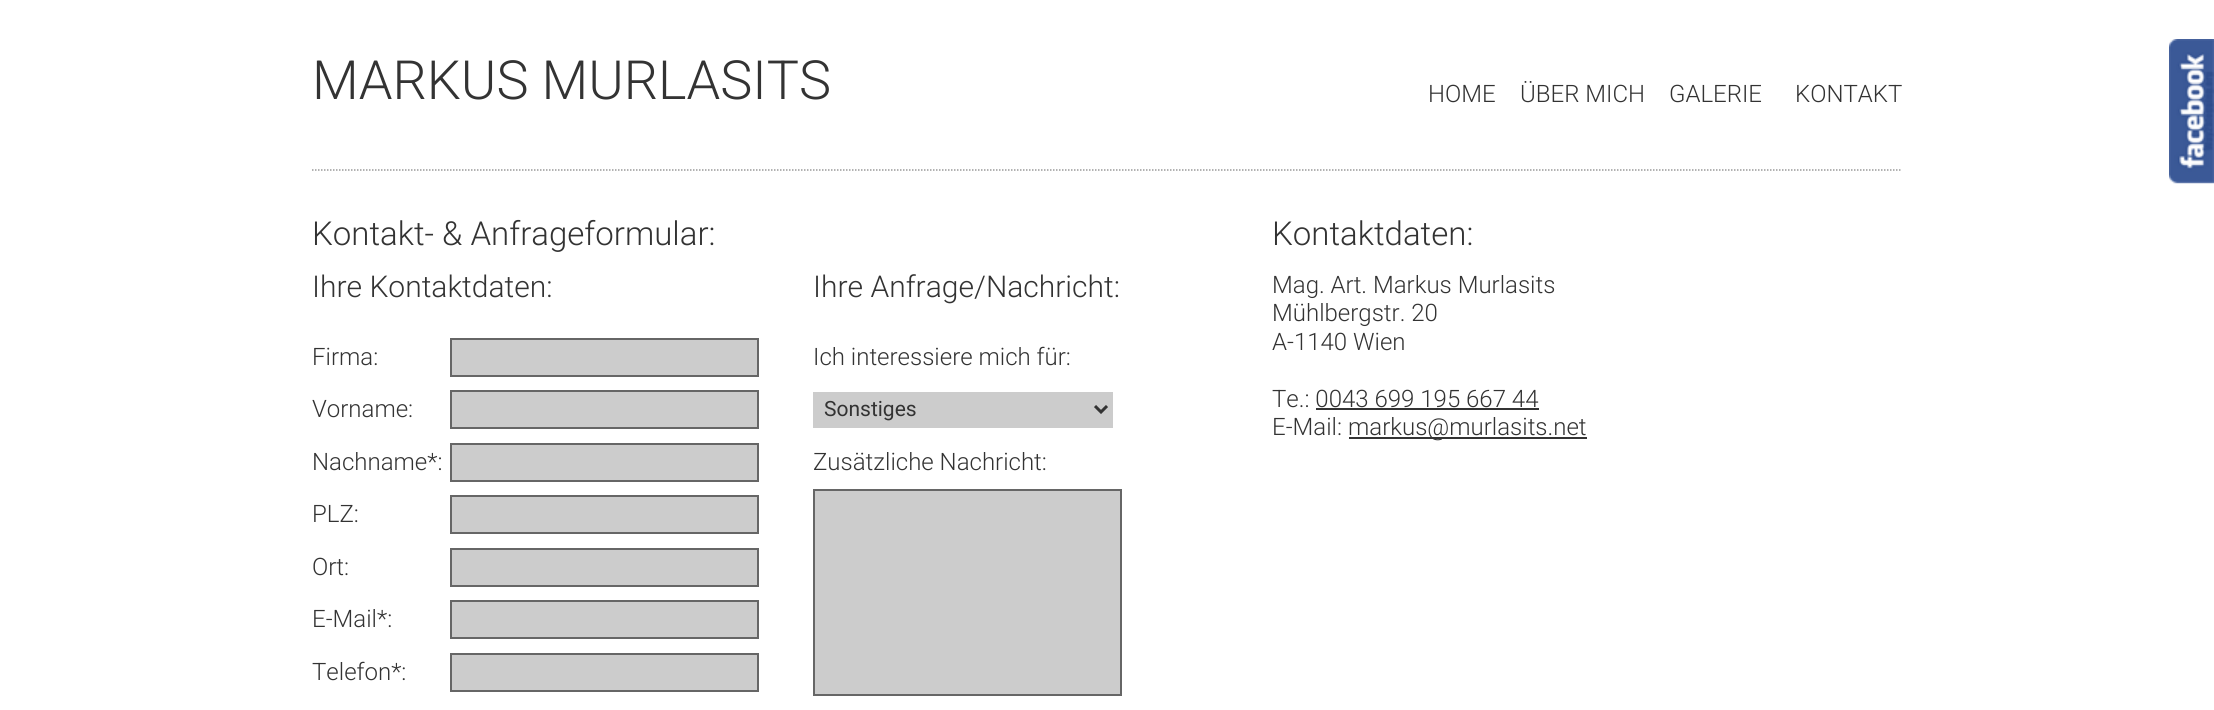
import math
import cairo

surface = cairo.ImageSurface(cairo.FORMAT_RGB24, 2214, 710)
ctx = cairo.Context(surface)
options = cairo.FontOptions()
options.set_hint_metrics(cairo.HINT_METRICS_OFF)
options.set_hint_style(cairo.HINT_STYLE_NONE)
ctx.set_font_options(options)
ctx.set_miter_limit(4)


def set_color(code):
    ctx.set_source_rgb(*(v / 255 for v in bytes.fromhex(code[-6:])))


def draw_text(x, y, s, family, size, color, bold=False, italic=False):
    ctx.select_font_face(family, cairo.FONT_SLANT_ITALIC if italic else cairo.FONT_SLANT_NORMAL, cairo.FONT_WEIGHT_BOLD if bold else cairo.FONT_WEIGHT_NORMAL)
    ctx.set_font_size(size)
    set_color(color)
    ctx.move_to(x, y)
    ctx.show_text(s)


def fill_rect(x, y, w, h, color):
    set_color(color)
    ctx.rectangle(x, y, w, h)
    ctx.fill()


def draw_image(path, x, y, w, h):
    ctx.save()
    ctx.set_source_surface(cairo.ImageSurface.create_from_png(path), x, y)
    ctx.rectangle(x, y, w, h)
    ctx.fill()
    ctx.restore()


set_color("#ffffff")
ctx.paint()
draw_text(312, 99, "MARKUS MURLASITS", "Roboto Light", 54, "#333333")
draw_text(1428, 102, "HOME", "Roboto Light", 24, "#333333")
draw_text(1520, 102, "ÜBER MICH", "Roboto Light", 24, "#333333")
draw_text(1669, 102, "GALERIE", "Roboto Light", 24, "#333333")
draw_text(1795, 102, "KONTAKT", "Roboto Light", 24, "#333333")
draw_image("assets/img1.png", 2169, 39, 45, 145)
ctx.new_path()
ctx.move_to(312, 170)
ctx.line_to(1902, 170)
set_color("#999999")
ctx.set_line_width(1.5)
ctx.set_dash([1.5, 1.5])
ctx.stroke()
draw_text(312, 245, "Kontakt- & Anfrageformular:", "Roboto Light", 33, "#333333")
draw_text(312, 297, "Ihre Kontaktdaten:", "Roboto Light", 30, "#333333")
draw_text(813, 297, "Ihre Anfrage/Nachricht:", "Roboto Light", 30, "#333333")
draw_text(312, 365, "Firma:", "Roboto Light", 24, "#333333")
set_color("#cccccc")
ctx.rectangle(451, 339, 307, 37)
ctx.fill_preserve()
set_color("#666666")
ctx.set_line_width(2)
ctx.set_dash([])
ctx.stroke()
draw_text(813, 365, "Ich interessiere mich für:", "Roboto Light", 24, "#333333")
draw_text(312, 417, "Vorname:", "Roboto Light", 24, "#333333")
set_color("#cccccc")
ctx.rectangle(451, 391, 307, 37)
ctx.fill_preserve()
set_color("#666666")
ctx.stroke()
fill_rect(813, 392, 300, 36, "#cccccc")
ctx.new_path()
ctx.move_to(1095, 406)
ctx.line_to(1101, 412)
ctx.line_to(1107, 406)
set_color("#333333")
ctx.set_line_width(3)
ctx.stroke()
draw_text(824, 416, "Sonstiges", "Roboto", 21, "#333333")
draw_text(312, 470, "Nachname*:", "Roboto Light", 24, "#333333")
set_color("#cccccc")
ctx.rectangle(451, 444, 307, 37)
ctx.fill_preserve()
set_color("#666666")
ctx.set_line_width(2)
ctx.stroke()
draw_text(813, 470, "Zusätzliche Nachricht:", "Roboto Light", 24, "#333333")
draw_text(312, 522, "PLZ:", "Roboto Light", 24, "#333333")
set_color("#cccccc")
ctx.rectangle(451, 496, 307, 37)
ctx.fill_preserve()
set_color("#666666")
ctx.stroke()
set_color("#cccccc")
ctx.rectangle(814, 490, 307, 205)
ctx.fill_preserve()
set_color("#666666")
ctx.stroke()
draw_text(312, 575, "Ort:", "Roboto Light", 24, "#333333")
set_color("#cccccc")
ctx.rectangle(451, 549, 307, 37)
ctx.fill_preserve()
set_color("#666666")
ctx.stroke()
draw_text(312, 627, "E-Mail*:", "Roboto Light", 24, "#333333")
set_color("#cccccc")
ctx.rectangle(451, 601, 307, 37)
ctx.fill_preserve()
set_color("#666666")
ctx.stroke()
draw_text(312, 680, "Telefon*:", "Roboto Light", 24, "#333333")
set_color("#cccccc")
ctx.rectangle(451, 654, 307, 37)
ctx.fill_preserve()
set_color("#666666")
ctx.stroke()
draw_text(1272, 245, "Kontaktdaten:", "Roboto Light", 33, "#333333")
draw_text(1272, 293, "Mag. Art. Markus Murlasits", "Roboto Light", 24, "#333333")
draw_text(1272, 321, "Mühlbergstr. 20", "Roboto Light", 24, "#333333")
draw_text(1272, 350, "A-1140 Wien", "Roboto Light", 24, "#333333")
draw_text(1272, 407, "Te.: 0043 699 195 667 44", "Roboto Light", 24, "#333333")
fill_rect(1316, 408, 223, 2, "#333333")
draw_text(1272, 435, "E-Mail:", "Roboto Light", 24, "#333333")
fill_rect(1349, 437, 238, 2, "#333333")
draw_text(1348, 435, "markus@murlasits.net", "Roboto Light", 24, "#333333")
surface.write_to_png("output.png")
